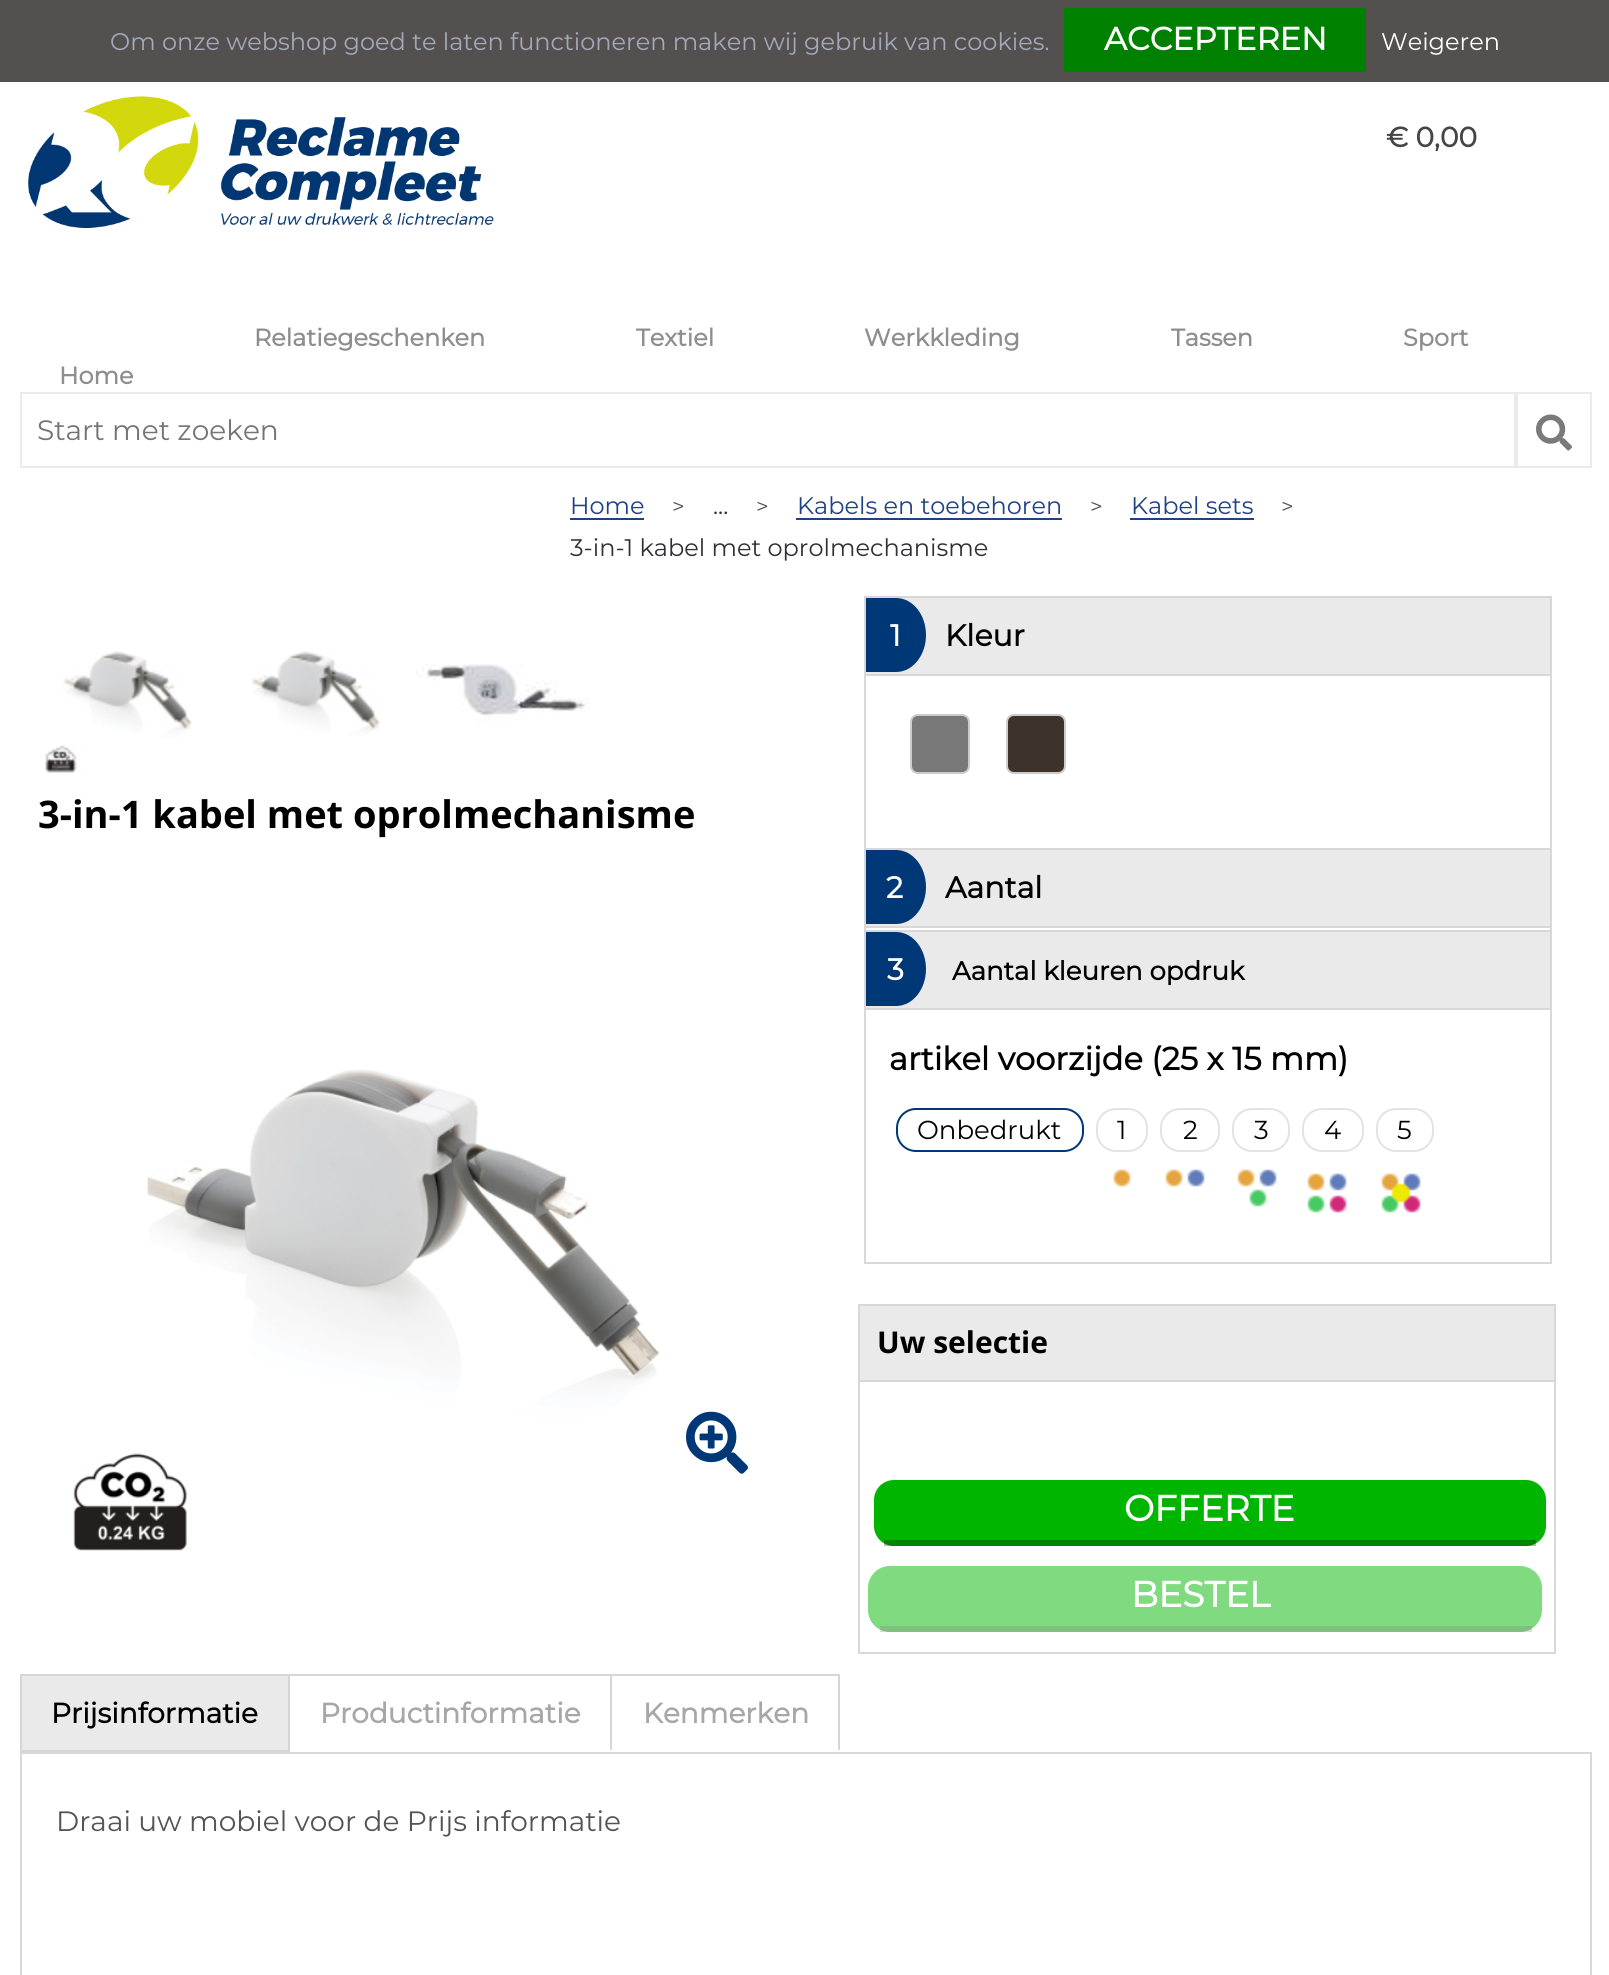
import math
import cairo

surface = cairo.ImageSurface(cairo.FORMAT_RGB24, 1609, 1975)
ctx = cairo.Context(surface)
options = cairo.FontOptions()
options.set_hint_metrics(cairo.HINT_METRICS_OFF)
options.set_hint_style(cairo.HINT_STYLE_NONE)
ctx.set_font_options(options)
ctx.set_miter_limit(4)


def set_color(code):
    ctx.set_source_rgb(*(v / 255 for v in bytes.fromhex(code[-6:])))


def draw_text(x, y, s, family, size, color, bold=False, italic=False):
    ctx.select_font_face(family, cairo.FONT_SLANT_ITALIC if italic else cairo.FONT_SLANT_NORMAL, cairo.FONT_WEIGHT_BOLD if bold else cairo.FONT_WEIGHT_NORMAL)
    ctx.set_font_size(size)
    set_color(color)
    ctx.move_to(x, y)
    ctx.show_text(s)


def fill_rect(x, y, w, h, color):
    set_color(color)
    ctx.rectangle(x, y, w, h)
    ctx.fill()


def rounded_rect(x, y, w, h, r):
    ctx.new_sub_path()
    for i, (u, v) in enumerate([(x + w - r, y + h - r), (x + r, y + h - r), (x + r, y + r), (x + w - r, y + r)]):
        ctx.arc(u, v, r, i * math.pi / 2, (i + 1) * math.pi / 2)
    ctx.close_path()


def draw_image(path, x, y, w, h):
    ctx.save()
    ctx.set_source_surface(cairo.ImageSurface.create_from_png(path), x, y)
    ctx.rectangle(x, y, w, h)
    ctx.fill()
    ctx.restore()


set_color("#ffffff")
ctx.paint()
fill_rect(0, 0, 1609, 82, "#545050")
draw_text(110, 50, "Om onze webshop goed te laten functioneren maken wij gebruik van cookies.", "Montserrat Thin", 24, "#a3a9b9")
fill_rect(1064, 8, 302, 64, "#008000")
draw_text(1104, 50, "ACCEPTEREN", "Montserrat", 32, "#ffffff", bold=True)
draw_text(1381, 50, "Weigeren", "Montserrat Thin", 24, "#ffffff")
draw_image("assets/img1.png", 28, 96, 466, 132)
draw_text(1386, 147, "€ 0,00", "Montserrat", 28, "#454545", bold=True)
draw_text(254, 346, "Relatiegeschenken", "Montserrat", 24, "#8e8e8e", bold=True)
draw_text(636, 346, "Textiel", "Montserrat", 24, "#8e8e8e", bold=True)
draw_text(864, 346, "Werkkleding", "Montserrat", 24, "#8e8e8e", bold=True)
draw_text(1171, 346, "Tassen", "Montserrat", 24, "#8e8e8e", bold=True)
draw_text(1403, 346, "Sport", "Montserrat", 24, "#8e8e8e", bold=True)
draw_text(59, 384, "Home", "Montserrat", 24, "#8e8e8e", bold=True)
ctx.rectangle(21, 393, 1494, 74)
set_color("#e9ebef")
ctx.stroke()
draw_text(37, 440, "Start met zoeken", "Montserrat Thin", 28, "#757575")
ctx.rectangle(1517, 393, 74, 74)
set_color("#e9ebef")
ctx.stroke()
draw_image("assets/img2.png", 1536, 414, 36, 37)
fill_rect(570, 518, 74, 2, "#204285")
draw_text(570, 514, "Home", "Montserrat Thin", 24, "#204285")
draw_text(672, 514, ">", "Montserrat Thin", 22, "#545454")
draw_text(756, 514, ">", "Montserrat Thin", 22, "#545454")
fill_rect(796, 518, 266, 2, "#204285")
draw_text(797, 514, "Kabels en toebehoren", "Montserrat Thin", 24, "#204285")
draw_text(1090, 514, ">", "Montserrat Thin", 22, "#545454")
fill_rect(1130, 518, 124, 2, "#204285")
draw_text(1131, 514, "Kabel sets", "Montserrat Thin", 24, "#204285")
draw_text(1281, 514, ">", "Montserrat Thin", 22, "#545454")
draw_text(713, 514, "...", "Montserrat Thin", 24, "#2e3034")
draw_text(570, 556, "3-in-1 kabel met oprolmechanisme", "Montserrat Thin", 24, "#2e3034")
draw_image("assets/img3.png", 45, 651, 147, 122)
draw_image("assets/img4.png", 251, 651, 130, 85)
draw_image("assets/img5.png", 416, 664, 174, 60)
draw_text(38, 828, "3-in-1 kabel met oprolmechanisme", "Open Sans", 38, "#000000", bold=True)
draw_image("assets/img6.png", 73, 1069, 587, 482)
draw_image("assets/img7.png", 686, 1411, 62, 63)
ctx.rectangle(865, 597, 686, 666)
set_color("#d8d8d8")
ctx.stroke()
fill_rect(866, 598, 684, 76, "#eaeaea")
fill_rect(866, 674, 684, 2, "#d8d8d8")
set_color("#003776")
ctx.new_path()
ctx.move_to(866, 598)
ctx.line_to(896, 598)
ctx.curve_to(913, 598, 926, 615, 926, 635)
ctx.curve_to(926, 655, 913, 672, 896, 672)
ctx.line_to(866, 672)
ctx.close_path()
ctx.fill()
draw_text(890, 646, "1", "Montserrat", 30, "#ffffff", bold=True)
draw_text(945, 646, "Kleur", "Montserrat", 30, "#000000", bold=True)
set_color("#787878")
rounded_rect(911, 715, 58, 58, 7)
ctx.fill_preserve()
set_color("#cccccc")
ctx.stroke()
set_color("#3d332b")
rounded_rect(1007, 715, 58, 58, 7)
ctx.fill_preserve()
set_color("#cccccc")
ctx.stroke()
fill_rect(866, 850, 684, 76, "#eaeaea")
fill_rect(866, 848, 684, 2, "#d8d8d8")
fill_rect(866, 926, 684, 2, "#d8d8d8")
set_color("#003776")
ctx.new_path()
ctx.move_to(866, 850)
ctx.line_to(896, 850)
ctx.curve_to(913, 850, 926, 867, 926, 887)
ctx.curve_to(926, 907, 913, 924, 896, 924)
ctx.line_to(866, 924)
ctx.close_path()
ctx.fill()
draw_text(886, 898, "2", "Montserrat", 30, "#ffffff", bold=True)
draw_text(945, 898, "Aantal", "Montserrat", 30, "#000000", bold=True)
fill_rect(866, 932, 684, 76, "#eaeaea")
fill_rect(866, 930, 684, 2, "#d8d8d8")
fill_rect(866, 1008, 684, 2, "#d8d8d8")
set_color("#003776")
ctx.new_path()
ctx.move_to(866, 932)
ctx.line_to(896, 932)
ctx.curve_to(913, 932, 926, 949, 926, 969)
ctx.curve_to(926, 989, 913, 1006, 896, 1006)
ctx.line_to(866, 1006)
ctx.close_path()
ctx.fill()
draw_text(887, 980, "3", "Montserrat", 30, "#ffffff", bold=True)
draw_text(952, 980, "Aantal kleuren opdruk", "Montserrat", 26, "#000000", bold=True)
draw_text(889, 1070, "artikel voorzijde (25 x 15 mm)", "Montserrat", 32, "#000000", bold=True)
rounded_rect(897, 1109, 186, 42, 19)
set_color("#003776")
ctx.stroke()
draw_text(917, 1139, "Onbedrukt", "Montserrat Thin", 26, "#000000")
draw_image("assets/img8.png", 1113, 1169, 18, 18)
rounded_rect(1097, 1109, 50, 42, 19)
set_color("#e3e3e3")
ctx.stroke()
draw_text(1117, 1139, "1", "Montserrat Thin", 26, "#000000")
draw_image("assets/img9.png", 1165, 1169, 40, 18)
rounded_rect(1161, 1109, 58, 42, 19)
set_color("#e3e3e3")
ctx.stroke()
draw_text(1183, 1139, "2", "Montserrat Thin", 26, "#000000")
draw_image("assets/img10.png", 1237, 1169, 40, 38)
rounded_rect(1233, 1109, 56, 42, 19)
set_color("#e3e3e3")
ctx.stroke()
draw_text(1254, 1139, "3", "Montserrat Thin", 26, "#000000")
draw_image("assets/img11.png", 1307, 1173, 40, 40)
rounded_rect(1303, 1109, 60, 42, 19)
set_color("#e3e3e3")
ctx.stroke()
draw_text(1324, 1139, "4", "Montserrat Thin", 26, "#000000")
draw_image("assets/img12.png", 1381, 1173, 40, 40)
rounded_rect(1377, 1109, 56, 42, 19)
set_color("#e3e3e3")
ctx.stroke()
draw_text(1397, 1139, "5", "Montserrat Thin", 26, "#000000")
ctx.rectangle(859, 1305, 696, 348)
set_color("#d8d8d8")
ctx.stroke()
fill_rect(860, 1306, 694, 74, "#eaeaea")
fill_rect(860, 1380, 694, 2, "#d8d8d8")
draw_text(877, 1353, "Uw selectie", "Open Sans", 30, "#000000", bold=True)
set_color("#00b500")
rounded_rect(874, 1480, 672, 66, 20)
ctx.fill()
ctx.set_source_rgba(0, 0, 0, 0.28)
ctx.rectangle(884, 1540, 652, 6)
ctx.fill()
draw_text(1124, 1521, "OFFERTE", "Montserrat", 36, "#ffffff", bold=True)
set_color("#80da80")
rounded_rect(868, 1566, 674, 66, 22)
ctx.fill()
ctx.set_source_rgba(0.502, 0.502, 0.502, 0.28)
ctx.rectangle(880, 1626, 652, 6)
ctx.fill()
draw_text(1131, 1607, "BESTEL", "Montserrat", 36, "#ffffff", bold=True)
set_color("#eaeaea")
ctx.rectangle(21, 1675, 268, 76)
ctx.fill_preserve()
set_color("#d6d6d6")
ctx.stroke()
draw_text(51, 1723, "Prijsinformatie", "Montserrat", 28, "#000000", bold=True)
fill_rect(288, 1674, 552, 2, "#d6d6d6")
draw_text(320, 1723, "Productinformatie", "Montserrat", 28, "#a7a7a7", bold=True)
fill_rect(838, 1674, 2, 76, "#d6d6d6")
fill_rect(610, 1674, 2, 76, "#d6d6d6")
draw_text(643, 1723, "Kenmerken", "Montserrat", 28, "#a7a7a7", bold=True)
ctx.rectangle(21, 1753, 1570, 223)
set_color("#d8d8d8")
ctx.stroke()
draw_text(56, 1831, "Draai uw mobiel voor de Prijs informatie", "Montserrat Thin", 28, "#545454")
surface.write_to_png("output.png")
